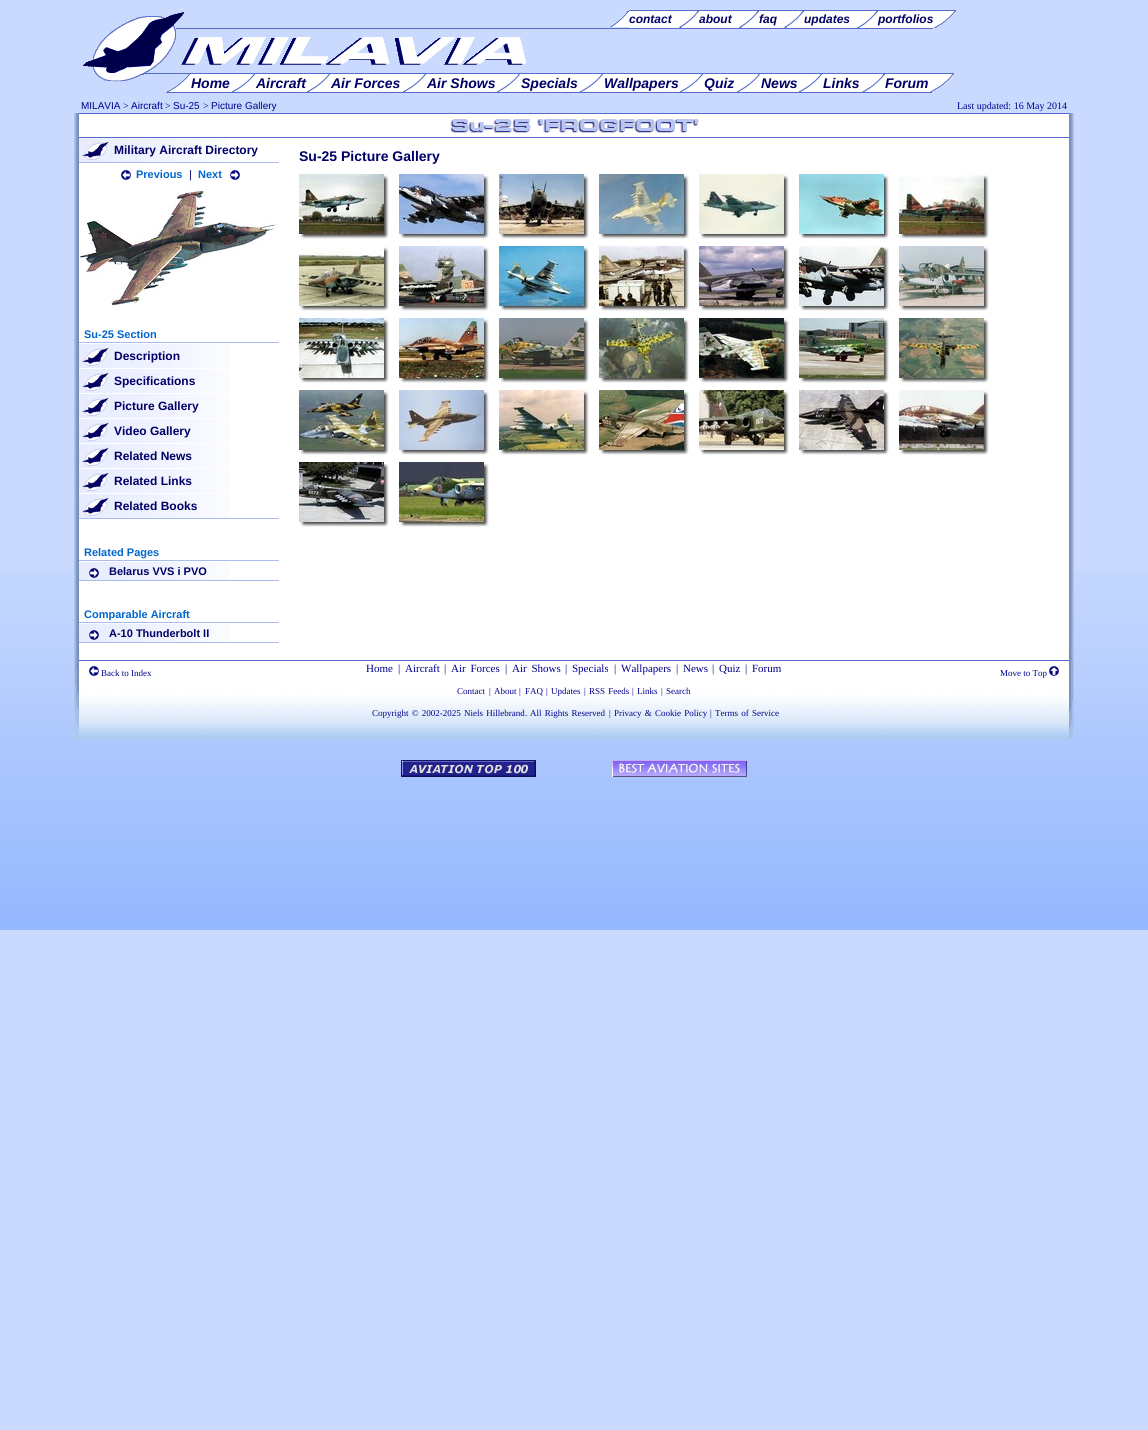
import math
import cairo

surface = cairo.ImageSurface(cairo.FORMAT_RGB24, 1148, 1430)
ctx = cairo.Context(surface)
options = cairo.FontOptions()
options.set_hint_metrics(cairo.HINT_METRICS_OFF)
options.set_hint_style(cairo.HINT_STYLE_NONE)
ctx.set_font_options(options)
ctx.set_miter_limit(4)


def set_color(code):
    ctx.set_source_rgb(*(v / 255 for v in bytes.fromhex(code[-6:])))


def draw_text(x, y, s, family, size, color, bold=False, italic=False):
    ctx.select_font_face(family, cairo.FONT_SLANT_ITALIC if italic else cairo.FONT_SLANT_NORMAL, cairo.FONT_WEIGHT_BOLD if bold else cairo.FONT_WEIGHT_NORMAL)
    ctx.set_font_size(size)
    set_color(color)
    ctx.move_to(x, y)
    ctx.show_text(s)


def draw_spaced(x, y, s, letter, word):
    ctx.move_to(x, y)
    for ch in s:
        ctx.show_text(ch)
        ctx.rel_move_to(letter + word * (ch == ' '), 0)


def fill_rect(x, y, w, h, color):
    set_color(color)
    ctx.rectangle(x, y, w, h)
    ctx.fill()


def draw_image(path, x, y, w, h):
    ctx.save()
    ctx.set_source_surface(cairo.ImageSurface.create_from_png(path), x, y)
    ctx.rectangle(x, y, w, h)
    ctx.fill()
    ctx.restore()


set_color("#c9dafe")
ctx.paint()
draw_image("assets/img1.png", 0, 570, 1148, 360)
draw_image("assets/img2.png", 83, 12, 443, 70)
fill_rect(176, 28, 757, 1, "#556ccc")
draw_image("assets/img3.png", 609, 11, 20, 16)
fill_rect(629, 11, 68, 17, "#ffffff")
draw_text(629, 23, "contact", "Liberation Sans", 12, "#000066", bold=True, italic=True)
fill_rect(629, 10, 304, 1, "#556ccc")
draw_image("assets/img4.png", 679, 11, 20, 16)
fill_rect(699, 11, 58, 17, "#ffffff")
draw_text(699, 23, "about", "Liberation Sans", 12, "#000066", bold=True, italic=True)
draw_image("assets/img4.png", 739, 11, 20, 16)
fill_rect(759, 11, 43, 17, "#ffffff")
draw_text(759, 23, "faq", "Liberation Sans", 12, "#000066", bold=True, italic=True)
draw_image("assets/img4.png", 784, 11, 20, 16)
fill_rect(804, 11, 72, 17, "#ffffff")
draw_text(804, 23, "updates", "Liberation Sans", 12, "#000066", bold=True, italic=True)
draw_image("assets/img5.png", 856, 11, 22, 17)
fill_rect(878, 11, 55, 17, "#ffffff")
draw_text(878, 23, "portfolios", "Liberation Sans", 12, "#000066", bold=True, italic=True)
draw_image("assets/img6.png", 933, 10, 23, 18)
draw_image("assets/img7.png", 678, 27, 21, 1)
draw_image("assets/img7.png", 738, 27, 21, 1)
draw_image("assets/img7.png", 783, 27, 21, 1)
fill_rect(144, 73, 785, 1, "#556ccc")
draw_image("assets/img8.png", 166, 74, 25, 19)
fill_rect(191, 74, 62, 18, "#ffffff")
draw_text(191, 88, "Home", "Liberation Sans", 14, "#000066", bold=True, italic=True)
fill_rect(191, 92, 738, 1, "#556ccc")
draw_image("assets/img9.png", 231, 74, 25, 18)
fill_rect(256, 74, 72, 18, "#ffffff")
draw_text(256, 88, "Aircraft", "Liberation Sans", 14, "#000066", bold=True, italic=True)
draw_image("assets/img10.png", 306, 74, 25, 18)
fill_rect(331, 74, 93, 18, "#ffffff")
draw_text(331, 88, "Air Forces", "Liberation Sans", 14, "#000066", bold=True, italic=True)
draw_image("assets/img9.png", 402, 74, 25, 18)
fill_rect(427, 74, 91, 18, "#ffffff")
draw_text(427, 88, "Air Shows", "Liberation Sans", 14, "#000066", bold=True, italic=True)
draw_image("assets/img9.png", 496, 74, 25, 18)
fill_rect(521, 74, 80, 18, "#ffffff")
draw_text(521, 88, "Specials", "Liberation Sans", 14, "#000066", bold=True, italic=True)
draw_image("assets/img9.png", 579, 74, 25, 18)
fill_rect(604, 74, 97, 18, "#ffffff")
draw_text(604, 88, "Wallpapers", "Liberation Sans", 14, "#000066", bold=True, italic=True)
draw_image("assets/img9.png", 679, 74, 25, 18)
fill_rect(704, 74, 54, 18, "#ffffff")
draw_text(704, 88, "Quiz", "Liberation Sans", 14, "#000066", bold=True, italic=True)
draw_image("assets/img9.png", 736, 74, 25, 18)
fill_rect(761, 74, 59, 18, "#ffffff")
draw_text(761, 88, "News", "Liberation Sans", 14, "#000066", bold=True, italic=True)
draw_image("assets/img9.png", 798, 74, 25, 18)
fill_rect(823, 74, 60, 18, "#ffffff")
draw_text(823, 88, "Links", "Liberation Sans", 14, "#000066", bold=True, italic=True)
draw_image("assets/img11.png", 862, 74, 23, 18)
fill_rect(885, 74, 44, 18, "#ffffff")
draw_text(885, 88, "Forum", "Liberation Sans", 14, "#000066", bold=True, italic=True)
draw_image("assets/img12.png", 929, 73, 25, 20)
draw_text(81, 109, "MILAVIA", "Liberation Sans", 10, "#00008c")
draw_text(123, 109, ">", "Liberation Serif", 10, "#00008c")
draw_text(131, 109, "Aircraft", "Liberation Sans", 10, "#00008c")
draw_text(165, 109, ">", "Liberation Serif", 10, "#00008c")
draw_text(173, 109, "Su-25", "Liberation Sans", 10, "#00008c")
draw_text(203, 109, ">", "Liberation Serif", 10, "#00008c")
draw_text(211, 109, "Picture Gallery", "Liberation Sans", 10, "#00008c")
draw_text(957, 109, "Last updated: 16 May 2014", "Liberation Serif", 10, "#00008c")
draw_image("assets/img13.png", 74, 113, 1000, 547)
fill_rect(79, 114, 990, 23, "#ffffff")
fill_rect(79, 113, 990, 1, "#556ccc")
fill_rect(79, 137, 990, 1, "#556ccc")
draw_image("assets/img14.png", 450, 119, 249, 14)
fill_rect(79, 138, 990, 510, "#ffffff")
draw_image("assets/img15.png", 79, 138, 150, 24)
draw_image("assets/img16.png", 79, 140, 32, 20)
fill_rect(79, 162, 200, 1, "#aabbee")
draw_text(114, 154, "Military Aircraft Directory", "Liberation Sans", 12, "#000066", bold=True)
draw_image("assets/img17.png", 121, 170, 10, 10)
draw_text(136, 178, "Previous", "Liberation Sans", 11, "#0066cc", bold=True)
draw_text(189, 178, "|", "Liberation Sans", 11, "#000066")
draw_text(198, 178, "Next", "Liberation Sans", 11, "#0066cc", bold=True)
draw_image("assets/img18.png", 230, 170, 10, 10)
draw_image("assets/img19.png", 79, 190, 200, 116)
draw_image("assets/img20.png", 79, 344, 150, 174)
fill_rect(79, 518, 200, 1, "#aabbee")
fill_rect(79, 342, 200, 1, "#aabbee")
draw_text(84, 338, "Su-25 Section", "Liberation Sans", 11, "#0066cc", bold=True)
draw_image("assets/img16.png", 79, 346, 32, 20)
draw_text(114, 360, "Description", "Liberation Sans", 12, "#000066", bold=True)
draw_image("assets/img16.png", 79, 371, 32, 20)
fill_rect(79, 368, 150, 1, "#ffffff")
draw_text(114, 385, "Specifications", "Liberation Sans", 12, "#000066", bold=True)
draw_image("assets/img16.png", 79, 396, 32, 20)
fill_rect(79, 393, 150, 1, "#ffffff")
draw_text(114, 410, "Picture Gallery", "Liberation Sans", 12, "#000066", bold=True)
draw_image("assets/img16.png", 79, 421, 32, 20)
fill_rect(79, 418, 150, 1, "#ffffff")
draw_text(114, 435, "Video Gallery", "Liberation Sans", 12, "#000066", bold=True)
draw_image("assets/img16.png", 79, 446, 32, 20)
fill_rect(79, 443, 150, 1, "#ffffff")
draw_text(114, 460, "Related News", "Liberation Sans", 12, "#000066", bold=True)
draw_image("assets/img16.png", 79, 471, 32, 20)
fill_rect(79, 468, 150, 1, "#ffffff")
draw_text(114, 485, "Related Links", "Liberation Sans", 12, "#000066", bold=True)
draw_image("assets/img16.png", 79, 496, 32, 20)
fill_rect(79, 493, 150, 1, "#ffffff")
draw_text(114, 510, "Related Books", "Liberation Sans", 12, "#000066", bold=True)
draw_text(299, 161, "Su-25 Picture Gallery", "Liberation Sans", 14, "#000066", bold=True)
draw_image("assets/img21.png", 299, 174, 90, 65)
draw_image("assets/img22.png", 399, 174, 90, 65)
draw_image("assets/img23.png", 499, 174, 90, 65)
draw_image("assets/img24.png", 599, 174, 90, 65)
draw_image("assets/img25.png", 699, 174, 90, 65)
draw_image("assets/img26.png", 799, 174, 90, 65)
draw_image("assets/img27.png", 899, 174, 90, 65)
draw_image("assets/img28.png", 299, 247, 90, 64)
draw_image("assets/img29.png", 399, 246, 90, 65)
draw_image("assets/img30.png", 499, 246, 90, 65)
draw_image("assets/img31.png", 599, 246, 90, 65)
draw_image("assets/img32.png", 699, 246, 90, 65)
draw_image("assets/img33.png", 799, 246, 90, 65)
draw_image("assets/img34.png", 899, 246, 90, 65)
draw_image("assets/img35.png", 299, 318, 90, 65)
draw_image("assets/img36.png", 399, 318, 90, 65)
draw_image("assets/img37.png", 499, 318, 90, 65)
draw_image("assets/img38.png", 599, 318, 90, 65)
draw_image("assets/img39.png", 699, 318, 90, 65)
draw_image("assets/img40.png", 799, 318, 90, 65)
draw_image("assets/img41.png", 899, 318, 90, 65)
draw_image("assets/img42.png", 299, 390, 90, 65)
draw_image("assets/img43.png", 399, 390, 90, 65)
draw_image("assets/img44.png", 499, 390, 90, 65)
draw_image("assets/img45.png", 599, 390, 90, 65)
draw_image("assets/img46.png", 699, 390, 90, 65)
draw_image("assets/img47.png", 799, 390, 90, 65)
draw_image("assets/img48.png", 899, 390, 90, 65)
draw_image("assets/img49.png", 299, 462, 90, 65)
draw_image("assets/img50.png", 399, 462, 90, 65)
draw_image("assets/img51.png", 79, 562, 150, 18)
fill_rect(79, 580, 200, 1, "#aabbee")
fill_rect(79, 560, 200, 1, "#aabbee")
draw_text(84, 556, "Related Pages", "Liberation Sans", 11, "#0066cc", bold=True)
draw_image("assets/img52.png", 89, 568, 10, 10)
draw_text(109, 575, "Belarus VVS i PVO", "Liberation Sans", 11, "#000066", bold=True)
draw_image("assets/img51.png", 79, 624, 150, 18)
fill_rect(79, 642, 200, 1, "#aabbee")
fill_rect(79, 622, 200, 1, "#aabbee")
draw_text(84, 618, "Comparable Aircraft", "Liberation Sans", 11, "#0066cc", bold=True)
draw_image("assets/img52.png", 89, 630, 10, 10)
draw_text(109, 637, "A-10 Thunderbolt II", "Liberation Sans", 11, "#000066", bold=True)
draw_image("assets/img53.png", 74, 660, 1000, 80)
draw_image("assets/img17.png", 89, 666, 10, 10)
draw_text(101, 676, "Back to Index", "Liberation Serif", 9, "#00008c")
draw_text(366, 672, "Home", "Liberation Serif", 11, "#00008c")
draw_text(398, 672, "|", "Liberation Serif", 11, "#00008c")
draw_text(405, 672, "Aircraft", "Liberation Serif", 11, "#00008c")
draw_text(444, 672, "|", "Liberation Serif", 11, "#00008c")
draw_spaced(451, 672, "Air Forces", 0, 2)
draw_text(505, 672, "|", "Liberation Serif", 11, "#00008c")
draw_spaced(512, 672, "Air Shows", 0, 2)
draw_text(565, 672, "|", "Liberation Serif", 11, "#00008c")
draw_text(572, 672, "Specials", "Liberation Serif", 11, "#00008c")
draw_text(614, 672, "|", "Liberation Serif", 11, "#00008c")
draw_text(621, 672, "Wallpapers", "Liberation Serif", 11, "#00008c")
draw_text(676, 672, "|", "Liberation Serif", 11, "#00008c")
draw_text(683, 672, "News", "Liberation Serif", 11, "#00008c")
draw_text(712, 672, "|", "Liberation Serif", 11, "#00008c")
draw_text(719, 672, "Quiz", "Liberation Serif", 11, "#00008c")
draw_text(745, 672, "|", "Liberation Serif", 11, "#00008c")
draw_text(752, 672, "Forum", "Liberation Serif", 11, "#00008c")
draw_text(1000, 676, "Move to Top", "Liberation Serif", 9, "#00008c")
draw_image("assets/img54.png", 1049, 666, 10, 10)
draw_text(457, 694, "Contact", "Liberation Serif", 9, "#00008c")
draw_text(489, 694, "|", "Liberation Serif", 9, "#00008c")
draw_text(494, 694, "About", "Liberation Serif", 9, "#00008c")
draw_text(519, 694, "|", "Liberation Serif", 9, "#00008c")
draw_text(525, 694, "FAQ", "Liberation Serif", 9, "#00008c")
draw_text(546, 694, "|", "Liberation Serif", 9, "#00008c")
draw_text(551, 694, "Updates", "Liberation Serif", 9, "#00008c")
draw_text(584, 694, "|", "Liberation Serif", 9, "#00008c")
draw_spaced(589, 694, "RSS Feeds", 0, 1)
draw_text(632, 694, "|", "Liberation Serif", 9, "#00008c")
draw_text(637, 694, "Links", "Liberation Serif", 9, "#00008c")
draw_text(661, 694, "|", "Liberation Serif", 9, "#00008c")
draw_text(666, 694, "Search", "Liberation Serif", 9, "#00008c")
draw_spaced(372, 716, "Copyright © 2002-2025", 0, 1)
draw_spaced(464, 716, "Niels Hillebrand", 0, 1)
draw_text(525, 716, ".", "Liberation Serif", 9, "#00008c")
draw_spaced(530, 716, "All Rights Reserved", 0, 1)
draw_text(609, 716, "|", "Liberation Serif", 9, "#00008c")
draw_spaced(614, 716, "Privacy & Cookie Policy", 0, 1)
draw_text(710, 716, "|", "Liberation Serif", 9, "#00008c")
draw_spaced(715, 716, "Terms of Service", 0, 1)
draw_image("assets/img55.png", 401, 760, 135, 17)
draw_image("assets/img56.png", 612, 760, 135, 17)
surface.write_to_png("output.png")
